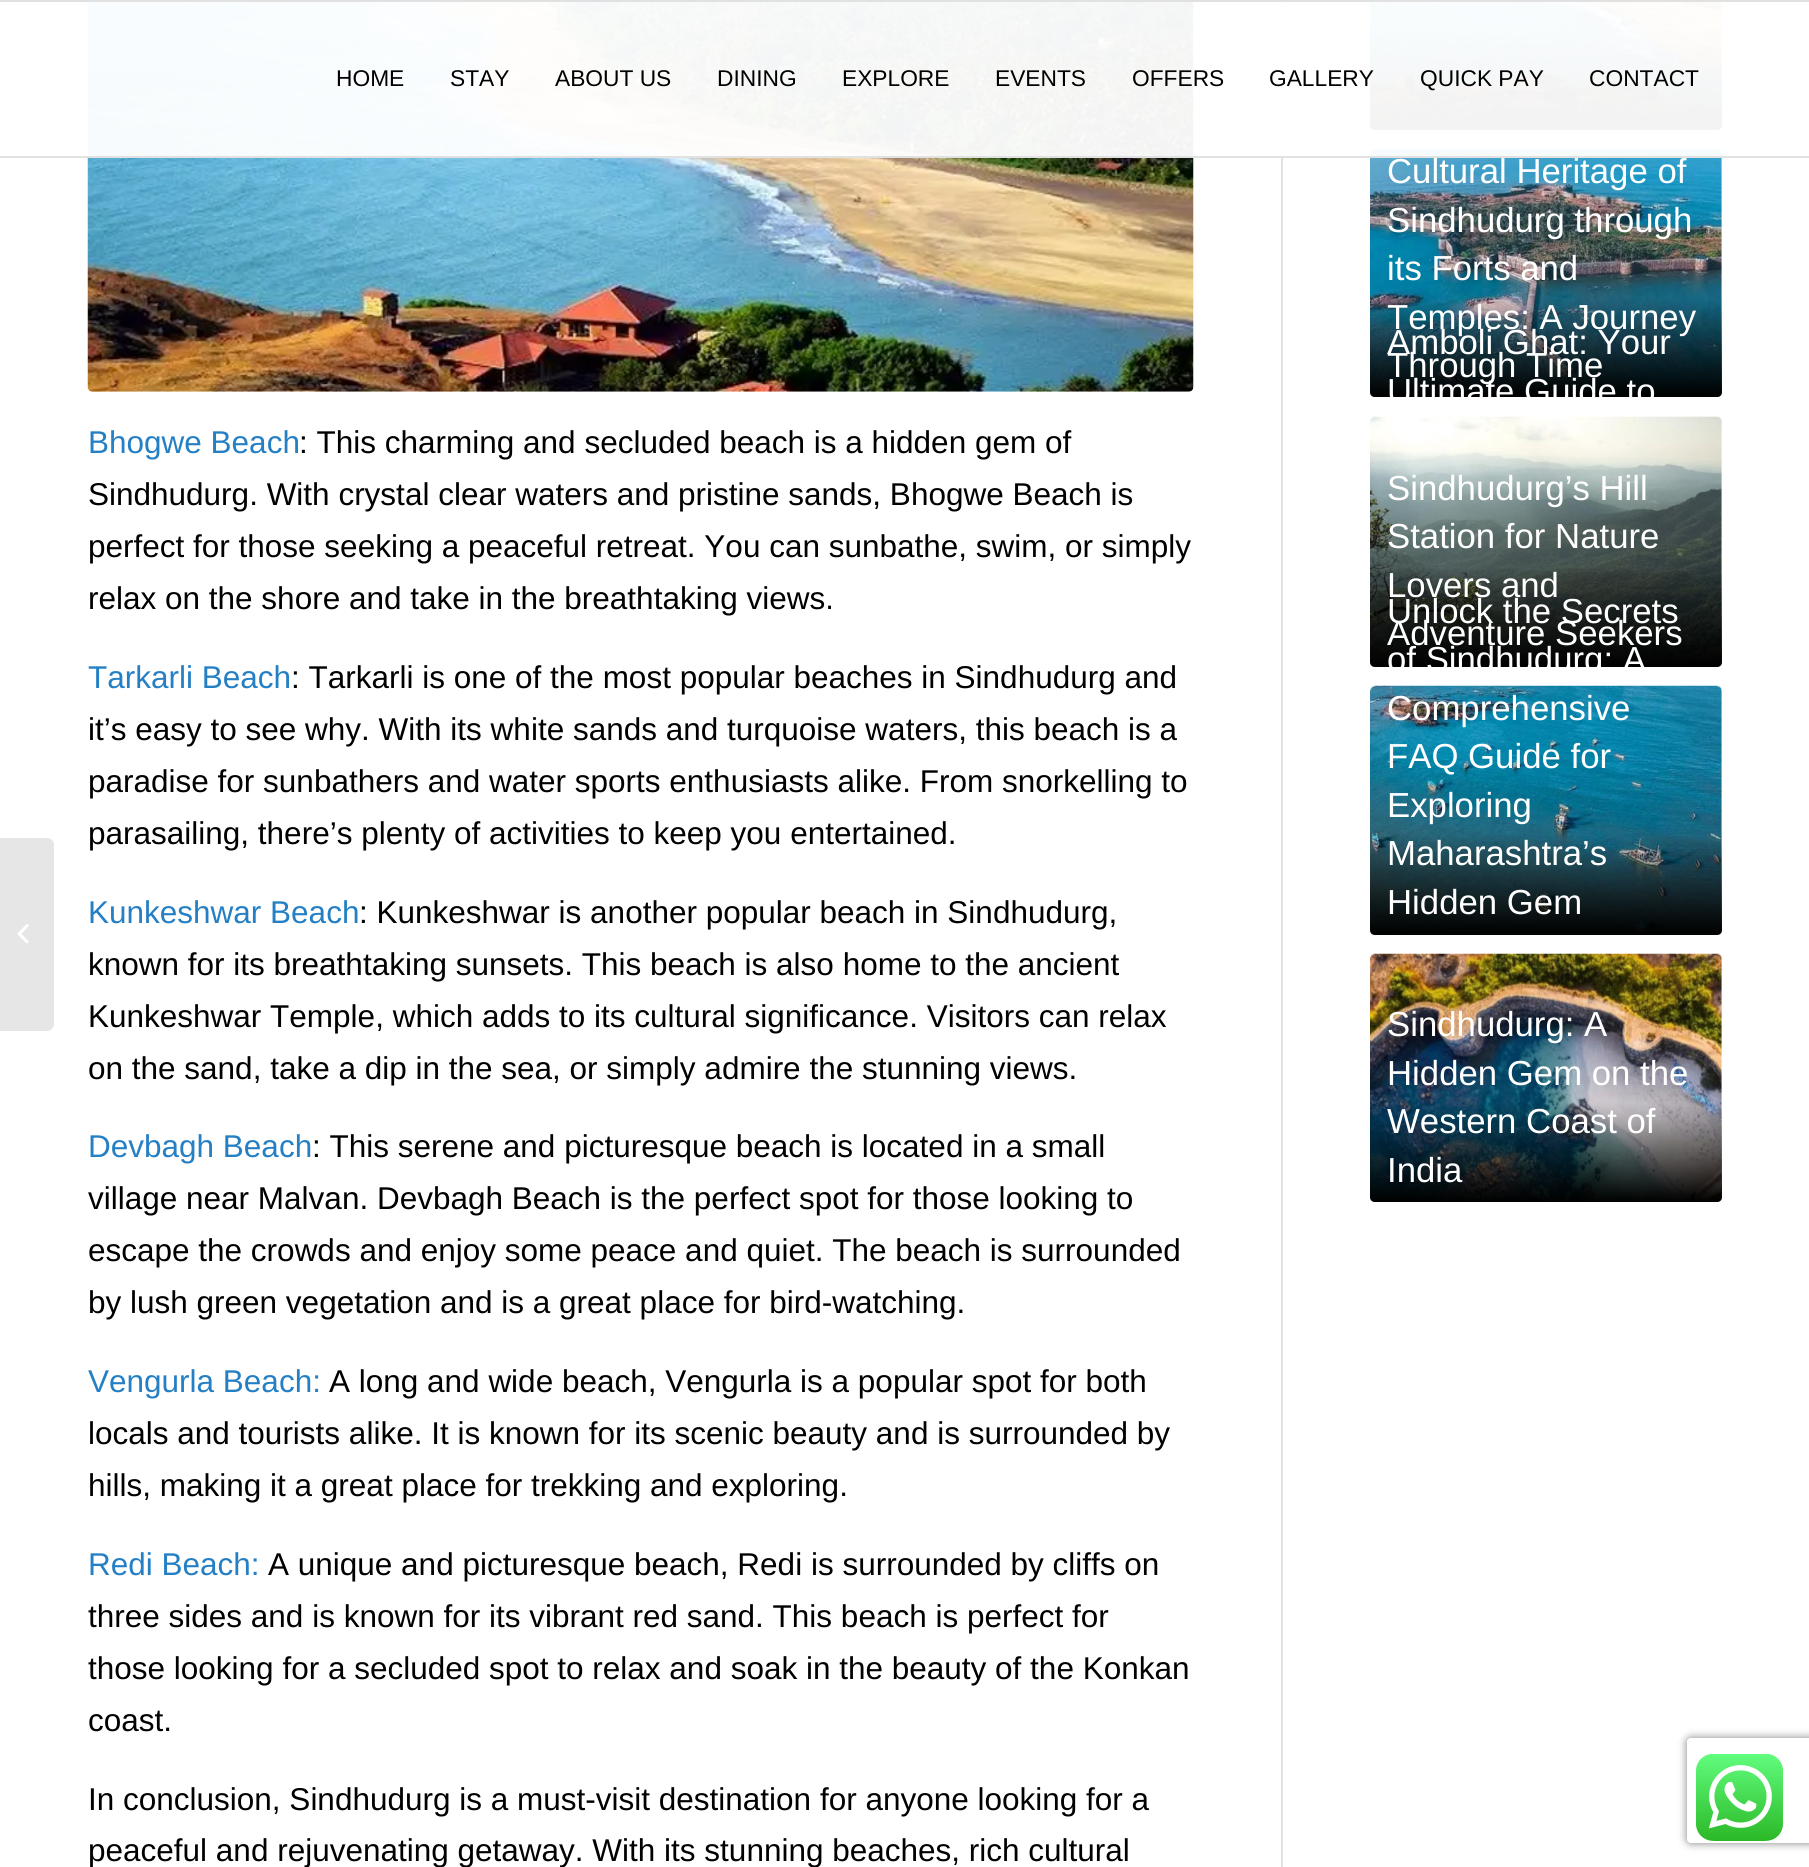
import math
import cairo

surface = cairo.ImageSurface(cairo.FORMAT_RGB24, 1809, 1867)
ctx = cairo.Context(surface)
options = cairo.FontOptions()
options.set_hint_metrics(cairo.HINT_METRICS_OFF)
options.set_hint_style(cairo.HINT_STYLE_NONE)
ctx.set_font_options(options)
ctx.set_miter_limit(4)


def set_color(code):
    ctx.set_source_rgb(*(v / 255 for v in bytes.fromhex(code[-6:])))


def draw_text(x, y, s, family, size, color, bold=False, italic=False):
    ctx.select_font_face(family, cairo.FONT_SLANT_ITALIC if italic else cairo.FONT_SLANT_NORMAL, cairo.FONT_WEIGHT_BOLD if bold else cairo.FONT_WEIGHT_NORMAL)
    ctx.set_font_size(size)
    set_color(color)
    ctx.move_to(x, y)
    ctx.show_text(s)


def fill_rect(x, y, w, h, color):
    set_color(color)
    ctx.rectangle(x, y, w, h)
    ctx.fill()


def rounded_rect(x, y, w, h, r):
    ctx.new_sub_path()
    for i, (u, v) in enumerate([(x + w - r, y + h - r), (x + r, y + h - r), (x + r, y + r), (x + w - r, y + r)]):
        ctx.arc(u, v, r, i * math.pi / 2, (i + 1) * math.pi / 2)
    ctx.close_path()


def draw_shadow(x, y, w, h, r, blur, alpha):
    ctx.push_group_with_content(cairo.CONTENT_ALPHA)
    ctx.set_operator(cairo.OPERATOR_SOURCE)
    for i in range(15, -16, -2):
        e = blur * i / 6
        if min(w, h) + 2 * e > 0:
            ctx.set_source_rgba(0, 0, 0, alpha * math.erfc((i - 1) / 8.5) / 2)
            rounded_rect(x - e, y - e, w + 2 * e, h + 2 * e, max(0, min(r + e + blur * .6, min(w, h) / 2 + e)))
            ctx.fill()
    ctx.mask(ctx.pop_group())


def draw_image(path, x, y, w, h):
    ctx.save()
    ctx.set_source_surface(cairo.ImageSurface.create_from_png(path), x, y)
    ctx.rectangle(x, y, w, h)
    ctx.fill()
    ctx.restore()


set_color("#ffffff")
ctx.paint()
fill_rect(1281, 0, 2, 1867, "#e1e1e1")
draw_image("assets/img2.png", 87, 2, 1107, 390)
set_color("#fcfcfc")
rounded_rect(1370, -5, 352, 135, 5)
ctx.fill()
draw_image("assets/img3.png", 1370, 2, 352, 128)
gradient = cairo.LinearGradient(1546, 30, 1546, 130)
gradient.add_color_stop_rgba(0, 0, 0, 0, 0)
gradient.add_color_stop_rgba(1, 0, 0, 0, 1)
ctx.set_source(gradient)
ctx.new_path()
ctx.move_to(1370, 30)
ctx.line_to(1722, 30)
ctx.line_to(1722, 125)
ctx.curve_to(1722, 128, 1720, 130, 1717, 130)
ctx.line_to(1375, 130)
ctx.curve_to(1372, 130, 1370, 128, 1370, 125)
ctx.close_path()
ctx.fill()
set_color("#fcfcfc")
rounded_rect(1370, 149, 352, 248, 5)
ctx.fill()
draw_image("assets/img4.png", 1370, 148, 352, 249)
ctx.set_source_rgba(1, 1, 1, 0.95)
ctx.rectangle(87, 2, 1635, 154)
ctx.fill()
fill_rect(0, 0, 1809, 2, "#e1e1e1")
draw_text(1387, 183, "Cultural Heritage of", "Liberation Sans", 34.75, "#ffffff")
fill_rect(0, 156, 1809, 2, "#e1e1e1")
draw_text(336, 86, "HOME", "Liberation Sans", 22.75, "#000000")
draw_text(450, 86, "STAY", "Liberation Sans", 22.75, "#000000")
draw_text(555, 86, "ABOUT US", "Liberation Sans", 22.75, "#000000")
draw_text(717, 86, "DINING", "Liberation Sans", 22.75, "#000000")
draw_text(842, 86, "EXPLORE", "Liberation Sans", 22.75, "#000000")
draw_text(995, 86, "EVENTS", "Liberation Sans", 22.75, "#000000")
draw_text(1132, 86, "OFFERS", "Liberation Sans", 22.75, "#000000")
draw_text(1269, 86, "GALLERY", "Liberation Sans", 22.75, "#000000")
draw_text(1420, 86, "QUICK PAY", "Liberation Sans", 22.75, "#000000")
draw_text(1589, 86, "CONTACT", "Liberation Sans", 22.75, "#000000")
set_color("#e6e6e6")
ctx.new_path()
ctx.move_to(0, 838)
ctx.line_to(47, 838)
ctx.curve_to(51, 838, 54, 841, 54, 845)
ctx.line_to(54, 1024)
ctx.curve_to(54, 1028, 51, 1031, 47, 1031)
ctx.line_to(0, 1031)
ctx.close_path()
ctx.fill()
draw_image("assets/img1.png", 17, 924, 12, 20)
draw_text(88, 453, "Bhogwe Beach", "Liberation Sans", 31.5, "#247fc4")
draw_text(299, 453, ": This charming and secluded beach is a hidden gem of", "Liberation Sans", 31.5, "#000000")
draw_text(88, 505, "Sindhudurg. With crystal clear waters and pristine sands, Bhogwe Beach is", "Liberation Sans", 31.5, "#000000")
draw_text(88, 557, "perfect for those seeking a peaceful retreat. You can sunbathe, swim, or simply", "Liberation Sans", 31.5, "#000000")
draw_text(88, 609, "relax on the shore and take in the breathtaking views.", "Liberation Sans", 31.5, "#000000")
draw_text(88, 688, "Tarkarli Beach", "Liberation Sans", 31.5, "#247fc4")
draw_text(291, 688, ": Tarkarli is one of the most popular beaches in Sindhudurg and", "Liberation Sans", 31.5, "#000000")
draw_text(88, 740, "it’s easy to see why. With its white sands and turquoise waters, this beach is a", "Liberation Sans", 31.5, "#000000")
draw_text(88, 792, "paradise for sunbathers and water sports enthusiasts alike. From snorkelling to", "Liberation Sans", 31.5, "#000000")
draw_text(88, 844, "parasailing, there’s plenty of activities to keep you entertained.", "Liberation Sans", 31.5, "#000000")
draw_text(88, 923, "Kunkeshwar Beach", "Liberation Sans", 31.5, "#247fc4")
draw_text(359, 923, ": Kunkeshwar is another popular beach in Sindhudurg,", "Liberation Sans", 31.5, "#000000")
draw_text(88, 975, "known for its breathtaking sunsets. This beach is also home to the ancient", "Liberation Sans", 31.5, "#000000")
draw_text(88, 1027, "Kunkeshwar Temple, which adds to its cultural significance. Visitors can relax", "Liberation Sans", 31.5, "#000000")
draw_text(88, 1079, "on the sand, take a dip in the sea, or simply admire the stunning views.", "Liberation Sans", 31.5, "#000000")
draw_text(88, 1157, "Devbagh Beach", "Liberation Sans", 31.5, "#247fc4")
draw_text(312, 1157, ": This serene and picturesque beach is located in a small", "Liberation Sans", 31.5, "#000000")
draw_text(88, 1209, "village near Malvan. Devbagh Beach is the perfect spot for those looking to", "Liberation Sans", 31.5, "#000000")
draw_text(88, 1261, "escape the crowds and enjoy some peace and quiet. The beach is surrounded", "Liberation Sans", 31.5, "#000000")
draw_text(88, 1313, "by lush green vegetation and is a great place for bird-watching.", "Liberation Sans", 31.5, "#000000")
draw_text(88, 1392, "Vengurla Beach:", "Liberation Sans", 31.5, "#247fc4")
draw_text(329, 1392, "A long and wide beach, Vengurla is a popular spot for both", "Liberation Sans", 31.5, "#000000")
draw_text(88, 1444, "locals and tourists alike. It is known for its scenic beauty and is surrounded by", "Liberation Sans", 31.5, "#000000")
draw_text(88, 1496, "hills, making it a great place for trekking and exploring.", "Liberation Sans", 31.5, "#000000")
draw_text(88, 1575, "Redi Beach:", "Liberation Sans", 31.5, "#247fc4")
draw_text(268, 1575, "A unique and picturesque beach, Redi is surrounded by cliffs on", "Liberation Sans", 31.5, "#000000")
draw_text(88, 1627, "three sides and is known for its vibrant red sand. This beach is perfect for", "Liberation Sans", 31.5, "#000000")
draw_text(88, 1679, "those looking for a secluded spot to relax and soak in the beauty of the Konkan", "Liberation Sans", 31.5, "#000000")
draw_text(88, 1731, "coast.", "Liberation Sans", 31.5, "#000000")
draw_text(88, 1810, "In conclusion, Sindhudurg is a must-visit destination for anyone looking for a", "Liberation Sans", 31.5, "#000000")
draw_text(88, 1861, "peaceful and rejuvenating getaway. With its stunning beaches, rich cultural", "Liberation Sans", 31.5, "#000000")
gradient = cairo.LinearGradient(1546, 298, 1546, 397)
gradient.add_color_stop_rgba(0, 0, 0, 0, 0)
gradient.add_color_stop_rgba(1, 0, 0, 0, 1)
ctx.set_source(gradient)
ctx.new_path()
ctx.move_to(1370, 298)
ctx.line_to(1722, 298)
ctx.line_to(1722, 392)
ctx.curve_to(1722, 395, 1720, 397, 1717, 397)
ctx.line_to(1375, 397)
ctx.curve_to(1372, 397, 1370, 395, 1370, 392)
ctx.close_path()
ctx.fill()
draw_text(1387, 232, "Sindhudurg through", "Liberation Sans", 34.75, "#ffffff")
draw_text(1387, 280, "its Forts and", "Liberation Sans", 34.75, "#ffffff")
draw_text(1387, 329, "Temples: A Journey", "Liberation Sans", 34.75, "#ffffff")
draw_text(1387, 377, "Through Time", "Liberation Sans", 34.75, "#ffffff")
draw_text(1387, 354, "Amboli Ghat: Your", "Liberation Sans", 34.75, "#ffffff")
draw_text(1387, 403, "Ultimate Guide to", "Liberation Sans", 34.75, "#ffffff")
set_color("#fcfcfc")
rounded_rect(1370, 417, 352, 250, 5)
ctx.fill()
draw_image("assets/img5.png", 1370, 416, 352, 251)
draw_text(1387, 500, "Sindhudurg’s Hill", "Liberation Sans", 34.75, "#ffffff")
draw_text(1387, 548, "Station for Nature", "Liberation Sans", 34.75, "#ffffff")
gradient = cairo.LinearGradient(1546, 567, 1546, 667)
gradient.add_color_stop_rgba(0, 0, 0, 0, 0)
gradient.add_color_stop_rgba(1, 0, 0, 0, 1)
ctx.set_source(gradient)
ctx.new_path()
ctx.move_to(1370, 567)
ctx.line_to(1722, 567)
ctx.line_to(1722, 662)
ctx.curve_to(1722, 665, 1720, 667, 1717, 667)
ctx.line_to(1375, 667)
ctx.curve_to(1372, 667, 1370, 665, 1370, 662)
ctx.close_path()
ctx.fill()
draw_text(1387, 597, "Lovers and", "Liberation Sans", 34.75, "#ffffff")
draw_text(1387, 645, "Adventure Seekers", "Liberation Sans", 34.75, "#ffffff")
draw_text(1387, 623, "Unlock the Secrets", "Liberation Sans", 34.75, "#ffffff")
draw_text(1387, 671, "of Sindhudurg: A", "Liberation Sans", 34.75, "#ffffff")
set_color("#fcfcfc")
rounded_rect(1370, 686, 352, 249, 5)
ctx.fill()
draw_image("assets/img6.png", 1370, 685, 352, 250)
draw_text(1387, 720, "Comprehensive", "Liberation Sans", 34.75, "#ffffff")
draw_text(1387, 768, "FAQ Guide for", "Liberation Sans", 34.75, "#ffffff")
draw_text(1387, 817, "Exploring", "Liberation Sans", 34.75, "#ffffff")
gradient = cairo.LinearGradient(1546, 835, 1546, 935)
gradient.add_color_stop_rgba(0, 0, 0, 0, 0)
gradient.add_color_stop_rgba(1, 0, 0, 0, 1)
ctx.set_source(gradient)
ctx.new_path()
ctx.move_to(1370, 835)
ctx.line_to(1722, 835)
ctx.line_to(1722, 930)
ctx.curve_to(1722, 933, 1720, 935, 1717, 935)
ctx.line_to(1375, 935)
ctx.curve_to(1372, 935, 1370, 933, 1370, 930)
ctx.close_path()
ctx.fill()
draw_text(1387, 865, "Maharashtra’s", "Liberation Sans", 34.75, "#ffffff")
draw_text(1387, 914, "Hidden Gem", "Liberation Sans", 34.75, "#ffffff")
set_color("#fcfcfc")
rounded_rect(1370, 954, 352, 248, 5)
ctx.fill()
draw_image("assets/img7.png", 1370, 953, 352, 249)
gradient = cairo.LinearGradient(1546, 1103, 1546, 1202)
gradient.add_color_stop_rgba(0, 0, 0, 0, 0)
gradient.add_color_stop_rgba(1, 0, 0, 0, 1)
ctx.set_source(gradient)
ctx.new_path()
ctx.move_to(1370, 1103)
ctx.line_to(1722, 1103)
ctx.line_to(1722, 1197)
ctx.curve_to(1722, 1200, 1720, 1202, 1717, 1202)
ctx.line_to(1375, 1202)
ctx.curve_to(1372, 1202, 1370, 1200, 1370, 1197)
ctx.close_path()
ctx.fill()
draw_text(1387, 1036, "Sindhudurg: A", "Liberation Sans", 34.75, "#ffffff")
draw_text(1387, 1085, "Hidden Gem on the", "Liberation Sans", 34.75, "#ffffff")
draw_text(1387, 1133, "Western Coast of", "Liberation Sans", 34.75, "#ffffff")
draw_text(1387, 1182, "India", "Liberation Sans", 34.75, "#ffffff")
ctx.save()
ctx.set_fill_rule(cairo.FILL_RULE_EVEN_ODD)
ctx.new_path()
ctx.move_to(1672, 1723)
ctx.line_to(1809, 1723)
ctx.line_to(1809, 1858)
ctx.line_to(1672, 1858)
ctx.close_path()
ctx.move_to(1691, 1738)
ctx.line_to(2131, 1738)
ctx.curve_to(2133, 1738, 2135, 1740, 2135, 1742)
ctx.line_to(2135, 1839)
ctx.curve_to(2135, 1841, 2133, 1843, 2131, 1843)
ctx.line_to(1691, 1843)
ctx.curve_to(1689, 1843, 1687, 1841, 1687, 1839)
ctx.line_to(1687, 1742)
ctx.curve_to(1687, 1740, 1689, 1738, 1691, 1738)
ctx.close_path()
ctx.clip()
set_color("#808080")
draw_shadow(1687, 1738, 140, 105, 4, 4.5, 1)
ctx.restore()
draw_image("assets/img8.png", 1696, 1754, 87, 87)
surface.write_to_png("output.png")
